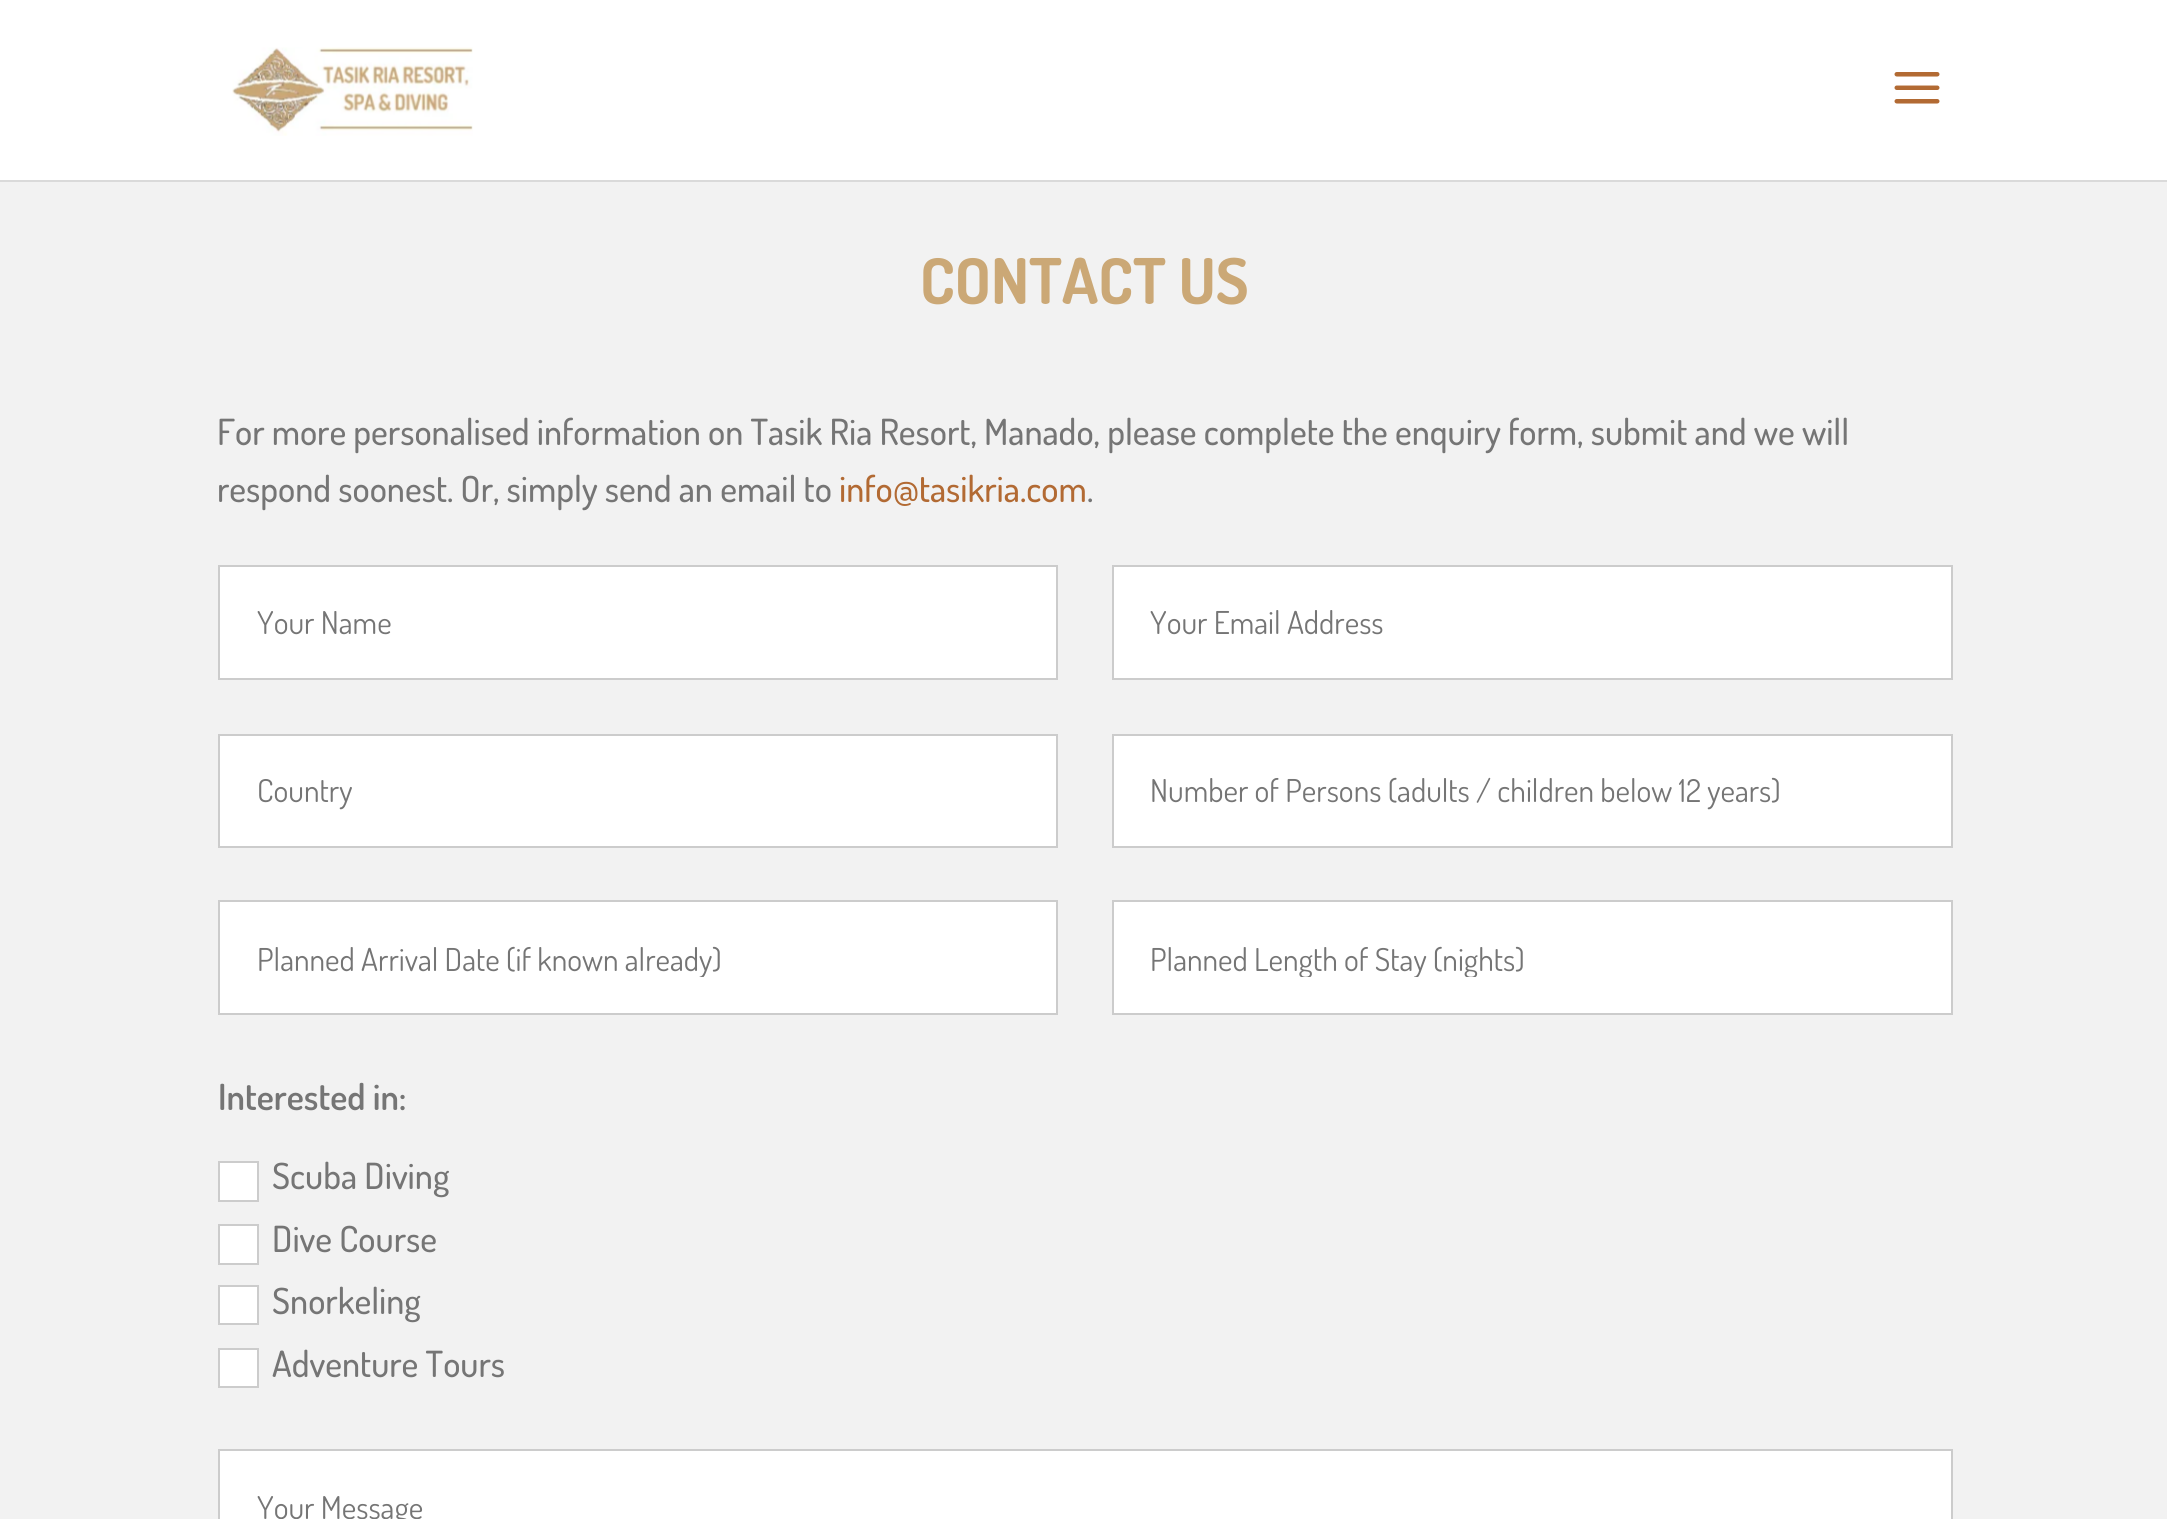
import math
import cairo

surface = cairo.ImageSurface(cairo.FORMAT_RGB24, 2167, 1519)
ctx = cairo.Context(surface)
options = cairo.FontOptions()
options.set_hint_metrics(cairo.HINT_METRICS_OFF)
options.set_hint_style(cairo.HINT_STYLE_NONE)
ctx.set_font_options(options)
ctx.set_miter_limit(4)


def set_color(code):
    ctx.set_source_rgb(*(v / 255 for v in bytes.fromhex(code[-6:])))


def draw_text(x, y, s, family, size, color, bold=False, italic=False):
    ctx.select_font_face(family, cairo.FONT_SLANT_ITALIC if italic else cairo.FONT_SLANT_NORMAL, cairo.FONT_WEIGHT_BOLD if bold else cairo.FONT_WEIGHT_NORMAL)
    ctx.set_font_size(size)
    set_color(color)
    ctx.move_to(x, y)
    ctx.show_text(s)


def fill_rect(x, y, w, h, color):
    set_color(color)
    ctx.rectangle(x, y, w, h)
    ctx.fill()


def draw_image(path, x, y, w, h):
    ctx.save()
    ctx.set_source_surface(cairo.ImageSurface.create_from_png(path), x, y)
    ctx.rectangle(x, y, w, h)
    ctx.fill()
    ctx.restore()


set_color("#ffffff")
ctx.paint()
fill_rect(0, 180, 2167, 2, "#dadada")
draw_image("assets/img1.png", 232, 47, 241, 89)
draw_image("assets/img2.png", 1894, 72, 46, 32)
fill_rect(0, 182, 2167, 1337, "#f2f2f2")
draw_text(920, 304, "CONTACT US", "Dosis", 63, "#cba876", bold=True)
draw_text(217, 445, "For more personalised information on Tasik Ria Resort, Manado, please complete the enquiry form, submit and we will", "Dosis Medium", 36, "#757575")
draw_text(217, 502, "respond soonest. Or, simply send an email to", "Dosis Medium", 36, "#757575")
draw_text(839, 502, "info@tasikria.com", "Dosis Medium", 36, "#b26a33")
draw_text(1087, 502, ".", "Dosis Medium", 36, "#757575")
set_color("#ffffff")
ctx.rectangle(219, 566, 838, 113)
ctx.fill_preserve()
set_color("#cccccc")
ctx.stroke()
draw_text(257, 634, "Your Name", "Dosis", 31.5, "#757575")
set_color("#ffffff")
ctx.rectangle(1113, 566, 839, 113)
ctx.fill_preserve()
set_color("#cccccc")
ctx.stroke()
draw_text(1150, 634, "Your Email Address", "Dosis", 31.5, "#757575")
set_color("#ffffff")
ctx.rectangle(219, 735, 838, 112)
ctx.fill_preserve()
set_color("#cccccc")
ctx.stroke()
draw_text(257, 802, "Country", "Dosis", 31.5, "#757575")
set_color("#ffffff")
ctx.rectangle(1113, 735, 839, 112)
ctx.fill_preserve()
set_color("#cccccc")
ctx.stroke()
draw_text(1150, 802, "Number of Persons (adults / children below 12 years)", "Dosis", 31.5, "#757575")
set_color("#ffffff")
ctx.rectangle(219, 901, 838, 113)
ctx.fill_preserve()
set_color("#cccccc")
ctx.stroke()
ctx.save()
ctx.rectangle(257, 938, 762, 39)
ctx.clip()
draw_text(257, 971, "Planned Arrival Date (if known already)", "Dosis", 31.5, "#757575")
ctx.restore()
set_color("#ffffff")
ctx.rectangle(1113, 901, 839, 113)
ctx.fill_preserve()
set_color("#cccccc")
ctx.stroke()
ctx.save()
ctx.rectangle(1150, 938, 765, 39)
ctx.clip()
draw_text(1150, 971, "Planned Length of Stay (nights)", "Dosis", 31.5, "#757575")
ctx.restore()
draw_text(218, 1110, "Interested in:", "Dosis SemiBold", 36, "#757575")
set_color("#ffffff")
ctx.rectangle(219, 1162, 39, 39)
ctx.fill_preserve()
set_color("#cccccc")
ctx.stroke()
draw_text(272, 1189, "Scuba Diving", "Dosis Medium", 36, "#757575")
set_color("#ffffff")
ctx.rectangle(219, 1225, 39, 39)
ctx.fill_preserve()
set_color("#cccccc")
ctx.stroke()
draw_text(272, 1252, "Dive Course", "Dosis Medium", 36, "#757575")
set_color("#ffffff")
ctx.rectangle(219, 1286, 39, 38)
ctx.fill_preserve()
set_color("#cccccc")
ctx.stroke()
draw_text(272, 1314, "Snorkeling", "Dosis Medium", 36, "#757575")
set_color("#ffffff")
ctx.rectangle(219, 1349, 39, 38)
ctx.fill_preserve()
set_color("#cccccc")
ctx.stroke()
draw_text(272, 1377, "Adventure Tours", "Dosis Medium", 36, "#757575")
set_color("#ffffff")
ctx.rectangle(219, 1450, 1733, 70)
ctx.fill_preserve()
set_color("#cccccc")
ctx.stroke()
draw_text(257, 1519, "Your Message", "Dosis", 31.5, "#757575")
surface.write_to_png("output.png")
